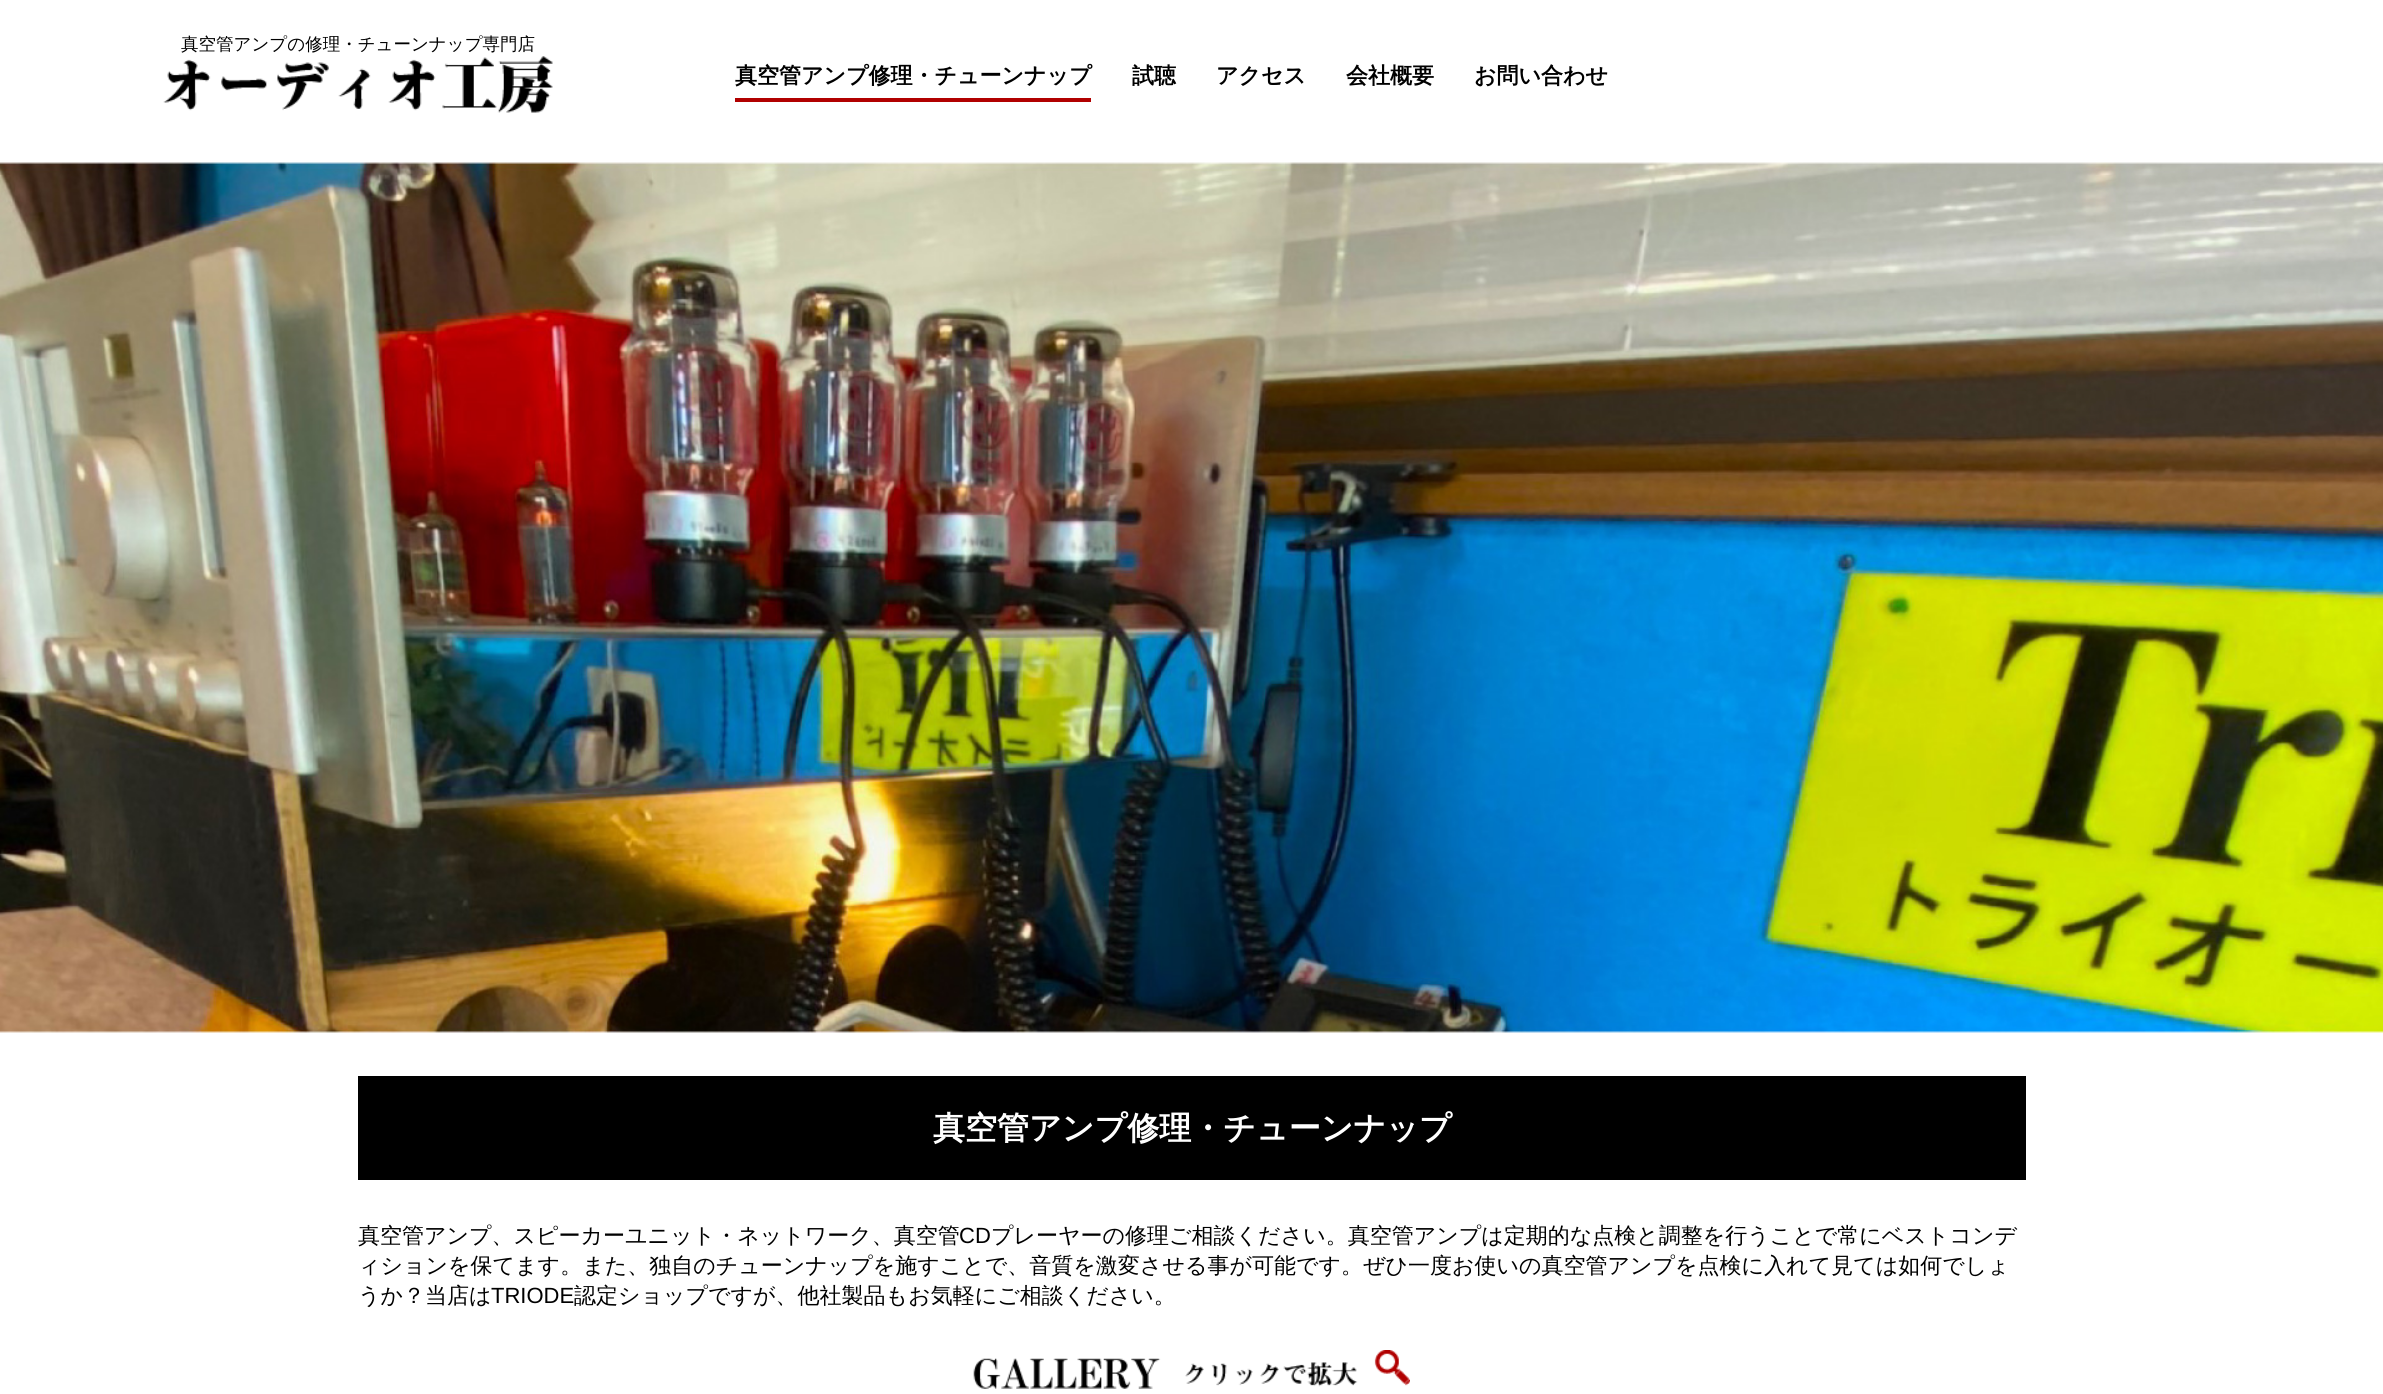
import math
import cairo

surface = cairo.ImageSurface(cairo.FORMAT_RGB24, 2383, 1394)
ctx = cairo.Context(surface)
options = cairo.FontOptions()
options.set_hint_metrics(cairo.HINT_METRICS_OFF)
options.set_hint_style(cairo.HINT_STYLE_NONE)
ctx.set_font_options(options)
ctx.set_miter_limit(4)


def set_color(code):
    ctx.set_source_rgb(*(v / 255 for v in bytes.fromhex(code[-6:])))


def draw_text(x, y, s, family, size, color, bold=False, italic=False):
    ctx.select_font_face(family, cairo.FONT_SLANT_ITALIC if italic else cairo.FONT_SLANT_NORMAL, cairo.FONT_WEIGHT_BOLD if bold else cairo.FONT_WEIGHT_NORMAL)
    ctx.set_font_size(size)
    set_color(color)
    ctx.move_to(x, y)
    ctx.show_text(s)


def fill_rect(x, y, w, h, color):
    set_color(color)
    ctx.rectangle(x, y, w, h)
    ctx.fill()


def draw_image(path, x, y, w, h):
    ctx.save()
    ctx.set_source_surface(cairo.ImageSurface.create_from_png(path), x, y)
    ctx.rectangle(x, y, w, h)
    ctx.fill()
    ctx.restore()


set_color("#ffffff")
ctx.paint()
draw_text(181, 50, "真空管アンプの修理・チューンナップ専門店", "WenQuanYi Zen Hei Medium", 17.5, "#000000")
draw_image("assets/img1.png", 163, 56, 390, 57)
draw_text(735, 83, "真空管アンプ修理・チューンナップ", "WenQuanYi Zen Hei", 22, "#000000", bold=True)
fill_rect(735, 98, 356, 4, "#b10000")
draw_text(1132, 83, "試聴", "WenQuanYi Zen Hei", 22, "#000000", bold=True)
draw_text(1216, 83, "アクセス", "WenQuanYi Zen Hei", 22, "#000000", bold=True)
draw_text(1346, 83, "会社概要", "WenQuanYi Zen Hei", 22, "#000000", bold=True)
draw_text(1474, 83, "お問い合わせ", "WenQuanYi Zen Hei", 22, "#000000", bold=True)
draw_image("assets/img2.png", 0, 162, 2383, 871)
fill_rect(358, 1076, 1668, 104, "#000000")
draw_text(933, 1139, "真空管アンプ修理・チューンナップ", "WenQuanYi Zen Hei", 32, "#ffffff", bold=True)
draw_text(358, 1243, "真空管アンプ、スピーカーユニット・ネットワーク、真空管", "WenQuanYi Zen Hei Medium", 22, "#000000")
draw_text(959, 1243, "CD", "Liberation Sans", 22, "#000000")
draw_text(991, 1243, "プレーヤーの修理ご相談ください。真空管アンプは定期的な点検と調整を行うことで常にベストコンデ", "WenQuanYi Zen Hei Medium", 22, "#000000")
draw_text(358, 1273, "ィションを保てます。また、独自のチューンナップを施すことで、音質を激変させる事が可能です。ぜひ一度お使いの真空管アンプを点検に入れて見ては如何でしょ", "WenQuanYi Zen Hei Medium", 22, "#000000")
draw_text(358, 1303, "うか？当店は", "WenQuanYi Zen Hei Medium", 22, "#000000")
draw_text(491, 1303, "TRIODE", "Liberation Sans", 22, "#000000")
draw_text(574, 1303, "認定ショップですが、他社製品もお気軽にご相談ください。", "WenQuanYi Zen Hei Medium", 22, "#000000")
draw_image("assets/img3.png", 973, 1350, 437, 39)
surface.write_to_png("output.png")
